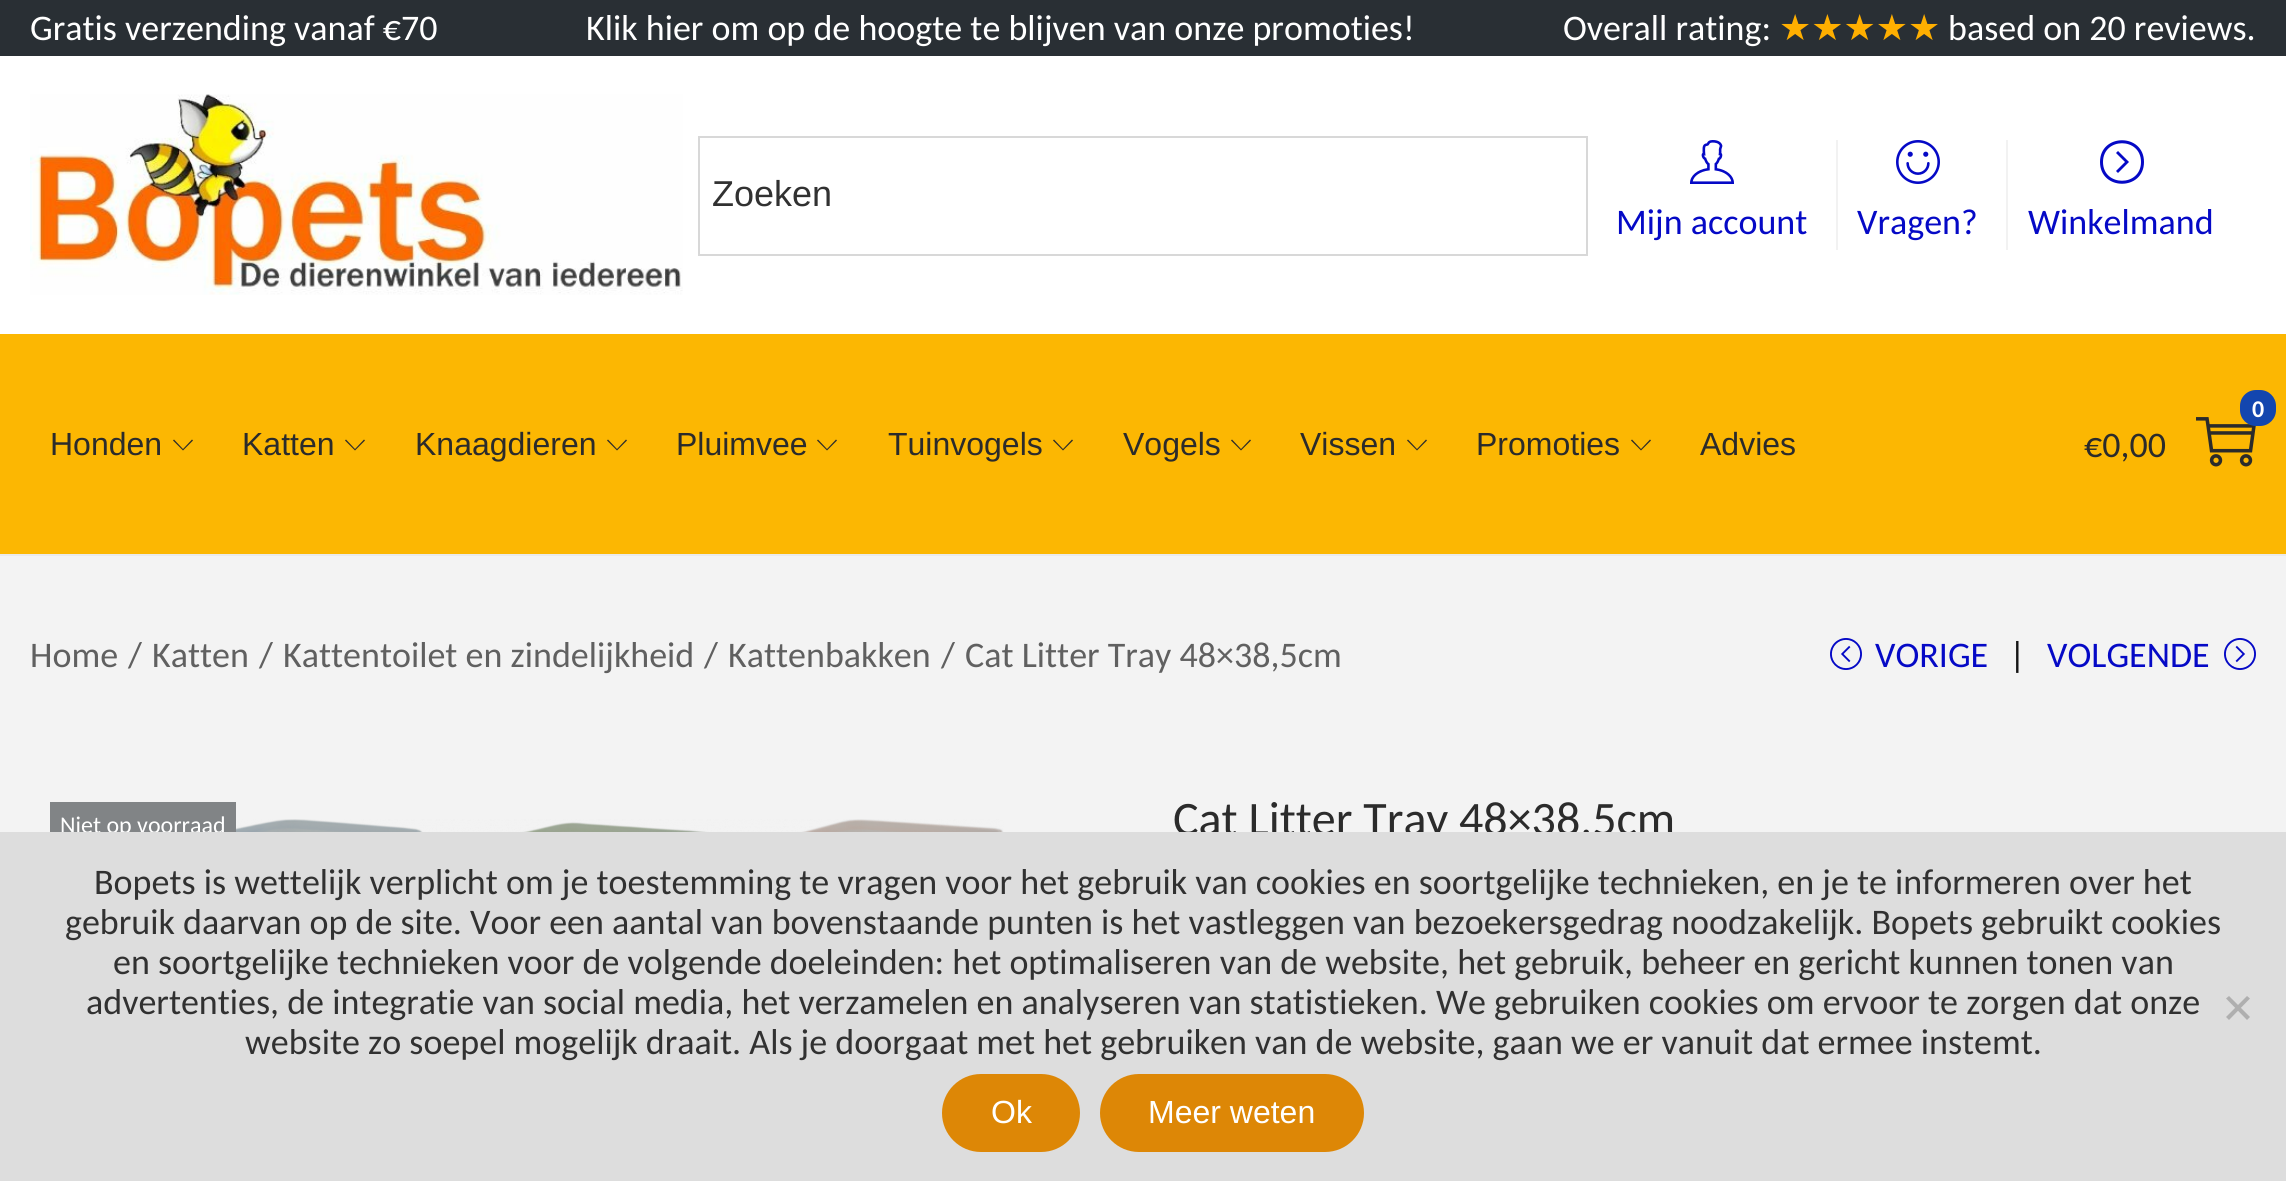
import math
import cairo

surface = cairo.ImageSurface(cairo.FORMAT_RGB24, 2286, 1181)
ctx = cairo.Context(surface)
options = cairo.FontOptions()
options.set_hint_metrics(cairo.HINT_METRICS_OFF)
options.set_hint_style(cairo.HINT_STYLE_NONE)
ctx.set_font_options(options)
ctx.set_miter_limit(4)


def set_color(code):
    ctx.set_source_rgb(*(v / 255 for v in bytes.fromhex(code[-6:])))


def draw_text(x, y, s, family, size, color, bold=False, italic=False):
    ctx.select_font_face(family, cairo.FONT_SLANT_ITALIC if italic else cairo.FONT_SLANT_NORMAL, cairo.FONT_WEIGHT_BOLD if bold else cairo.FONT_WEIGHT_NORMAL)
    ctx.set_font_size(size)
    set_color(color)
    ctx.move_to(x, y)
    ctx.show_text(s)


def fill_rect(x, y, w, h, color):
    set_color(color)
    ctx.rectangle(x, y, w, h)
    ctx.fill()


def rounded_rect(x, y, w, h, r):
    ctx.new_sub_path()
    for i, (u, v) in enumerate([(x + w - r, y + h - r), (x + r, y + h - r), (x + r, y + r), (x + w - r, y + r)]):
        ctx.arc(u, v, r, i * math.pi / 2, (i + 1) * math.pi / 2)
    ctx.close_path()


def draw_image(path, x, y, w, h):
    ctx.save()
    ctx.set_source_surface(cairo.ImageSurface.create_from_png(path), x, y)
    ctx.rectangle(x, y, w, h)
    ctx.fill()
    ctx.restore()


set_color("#ffffff")
ctx.paint()
fill_rect(0, 0, 2286, 56, "#292f34")
draw_text(30, 40, "Gratis verzending vanaf €70", "Carlito", 36, "#ffffff")
draw_text(586, 40, "Klik hier om op de hoogte te blijven van onze promoties!", "Carlito", 36, "#ffffff")
draw_text(1563, 40, "Overall rating:", "Carlito", 36, "#ffffff")
draw_text(1779, 40, "★★★★★", "DejaVu Sans", 36, "#ffaf00")
draw_text(1948, 40, "based on 20 reviews.", "Carlito", 36, "#ffffff")
fill_rect(0, 554, 2286, 2, "#eaeaea")
draw_image("assets/img1.png", 30, 94, 653, 201)
ctx.rectangle(699, 137, 888, 118)
set_color("#d8d8d8")
ctx.stroke()
draw_text(712, 206, "Zoeken", "Liberation Sans", 36, "#313131")
draw_image("assets/img2.png", 1690, 140, 44, 44)
draw_text(1616, 234, "Mijn account", "Carlito", 36, "#0509c6")
fill_rect(1836, 140, 2, 110, "#f2f2f2")
draw_image("assets/img3.png", 1896, 140, 44, 44)
draw_text(1857, 234, "Vragen?", "Carlito", 36, "#0509c6")
fill_rect(2006, 140, 2, 110, "#f2f2f2")
set_color("#0509c6")
ctx.new_path()
ctx.move_to(2118, 151)
ctx.line_to(2129, 162)
ctx.line_to(2118, 173)
ctx.line_to(2116, 171)
ctx.line_to(2125, 162)
ctx.line_to(2116, 153)
ctx.close_path()
ctx.move_to(2144, 162)
ctx.curve_to(2144, 191, 2100, 191, 2100, 162)
ctx.curve_to(2100, 133, 2144, 133, 2144, 162)
ctx.close_path()
ctx.move_to(2141, 162)
ctx.curve_to(2141, 137, 2103, 137, 2103, 162)
ctx.curve_to(2103, 187, 2141, 187, 2141, 162)
ctx.close_path()
ctx.fill()
draw_text(2028, 234, "Winkelmand", "Carlito", 36, "#0509c6")
fill_rect(0, 334, 2286, 220, "#fcb702")
draw_text(50, 455, "Honden", "Liberation Sans", 32, "#2b2b2b")
ctx.new_path()
ctx.move_to(193, 440.5)
ctx.line_to(183, 450.5)
ctx.line_to(173, 440.5)
ctx.line_to(174, 439.5)
ctx.line_to(183, 449)
ctx.line_to(192, 439.5)
ctx.close_path()
ctx.fill()
draw_text(242, 455, "Katten", "Liberation Sans", 32, "#2b2b2b")
ctx.new_path()
ctx.move_to(365, 440.5)
ctx.line_to(355, 450.5)
ctx.line_to(345, 440.5)
ctx.line_to(346, 439.5)
ctx.line_to(355, 449)
ctx.line_to(364, 439.5)
ctx.close_path()
ctx.fill()
draw_text(415, 455, "Knaagdieren", "Liberation Sans", 32, "#2b2b2b")
ctx.new_path()
ctx.move_to(627, 440.5)
ctx.line_to(617, 450.5)
ctx.line_to(607, 440.5)
ctx.line_to(608, 439.5)
ctx.line_to(617, 449)
ctx.line_to(626, 439.5)
ctx.close_path()
ctx.fill()
draw_text(676, 455, "Pluimvee", "Liberation Sans", 32, "#2b2b2b")
ctx.new_path()
ctx.move_to(837, 440.5)
ctx.line_to(827, 450.5)
ctx.line_to(817, 440.5)
ctx.line_to(818, 439.5)
ctx.line_to(827, 449)
ctx.line_to(836, 439.5)
ctx.close_path()
ctx.fill()
draw_text(888, 455, "Tuinvogels", "Liberation Sans", 32, "#2b2b2b")
ctx.new_path()
ctx.move_to(1073, 440.5)
ctx.line_to(1063, 450.5)
ctx.line_to(1053, 440.5)
ctx.line_to(1054, 439.5)
ctx.line_to(1063, 449)
ctx.line_to(1072, 439.5)
ctx.close_path()
ctx.fill()
draw_text(1123, 455, "Vogels", "Liberation Sans", 32, "#2b2b2b")
ctx.new_path()
ctx.move_to(1251, 440.5)
ctx.line_to(1241, 450.5)
ctx.line_to(1231, 440.5)
ctx.line_to(1232, 439.5)
ctx.line_to(1241, 449)
ctx.line_to(1250, 439.5)
ctx.close_path()
ctx.fill()
draw_text(1300, 455, "Vissen", "Liberation Sans", 32, "#2b2b2b")
ctx.new_path()
ctx.move_to(1427, 440.5)
ctx.line_to(1417, 450.5)
ctx.line_to(1407, 440.5)
ctx.line_to(1408, 439.5)
ctx.line_to(1417, 449)
ctx.line_to(1426, 439.5)
ctx.close_path()
ctx.fill()
draw_text(1476, 455, "Promoties", "Liberation Sans", 32, "#2b2b2b")
ctx.new_path()
ctx.move_to(1651, 440.5)
ctx.line_to(1641, 450.5)
ctx.line_to(1631, 440.5)
ctx.line_to(1632, 439.5)
ctx.line_to(1641, 449)
ctx.line_to(1650, 439.5)
ctx.close_path()
ctx.fill()
draw_text(1700, 455, "Advies", "Liberation Sans", 32, "#2b2b2b")
draw_image("assets/img4.png", 2196, 417, 60, 50)
set_color("#1346af")
rounded_rect(2240, 390, 36, 36, 16)
ctx.fill()
draw_text(2252, 417, "0", "Carlito", 24, "#ffffff", bold=True)
draw_text(2084, 457, "€0,00", "Carlito", 36, "#2b2b2b")
fill_rect(0, 556, 2286, 276, "#f3f3f3")
draw_text(30, 667, "Home", "Carlito", 36, "#606060")
draw_text(128, 667, "/", "Carlito", 36, "#606060")
draw_text(152, 667, "Katten", "Carlito", 36, "#606060")
draw_text(259, 667, "/", "Carlito", 36, "#606060")
draw_text(283, 667, "Kattentoilet en zindelijkheid", "Carlito", 36, "#606060")
draw_text(704, 667, "/", "Carlito", 36, "#606060")
draw_text(728, 667, "Kattenbakken", "Carlito", 36, "#606060")
draw_text(941, 667, "/", "Carlito", 36, "#606060")
draw_text(965, 667, "Cat Litter Tray 48×38,5cm", "Carlito", 36, "#606060")
draw_image("assets/img5.png", 1830, 638, 32, 32)
draw_text(1875, 667, "VORIGE", "Carlito", 36, "#0509c6")
draw_text(2009, 667, "|", "Carlito", 36, "#151515")
draw_text(2047, 667, "VOLGENDE", "Carlito", 36, "#0509c6")
draw_image("assets/img6.png", 2224, 638, 32, 32)
fill_rect(50, 802, 186, 30, "#818486")
draw_text(60, 833, "Niet op voorraad", "Carlito", 24, "#ffffff")
draw_image("assets/img7.png", 236, 819, 768, 13)
draw_text(1173, 835, "Cat Litter Tray 48×38,5cm", "Carlito", 48, "#2b2b2b")
fill_rect(0, 832, 2286, 349, "#dddddd")
draw_text(94, 894, "Bopets is wettelijk verplicht om je toestemming te vragen voor het gebruik van cookies en soortgelijke technieken, en je te informeren over het", "Carlito", 36, "#313131")
draw_text(65, 934, "gebruik daarvan op de site. Voor een aantal van bovenstaande punten is het vastleggen van bezoekersgedrag noodzakelijk. Bopets gebruikt cookies", "Carlito", 36, "#313131")
draw_text(113, 974, "en soortgelijke technieken voor de volgende doeleinden: het optimaliseren van de website, het gebruik, beheer en gericht kunnen tonen van", "Carlito", 36, "#313131")
draw_text(86, 1014, "advertenties, de integratie van social media, het verzamelen en analyseren van statistieken. We gebruiken cookies om ervoor te zorgen dat onze", "Carlito", 36, "#313131")
draw_text(245, 1054, "website zo soepel mogelijk draait. Als je doorgaat met het gebruiken van de website, gaan we er vanuit dat ermee instemt.", "Carlito", 36, "#313131")
set_color("#afafaf")
ctx.new_path()
ctx.move_to(2247, 996)
ctx.line_to(2250, 998.5)
ctx.line_to(2229, 1020)
ctx.line_to(2226, 1017)
ctx.close_path()
ctx.fill()
ctx.new_path()
ctx.move_to(2226, 998.5)
ctx.line_to(2229, 996)
ctx.line_to(2250, 1017)
ctx.line_to(2247, 1020)
ctx.close_path()
ctx.fill()
set_color("#dd8706")
rounded_rect(942, 1074, 138, 78, 39)
ctx.fill()
draw_text(991, 1123, "Ok", "Liberation Sans", 32, "#ffffff")
set_color("#dd8706")
rounded_rect(1100, 1074, 264, 78, 39)
ctx.fill()
draw_text(1148, 1123, "Meer weten", "Liberation Sans", 32, "#ffffff")
surface.write_to_png("output.png")
